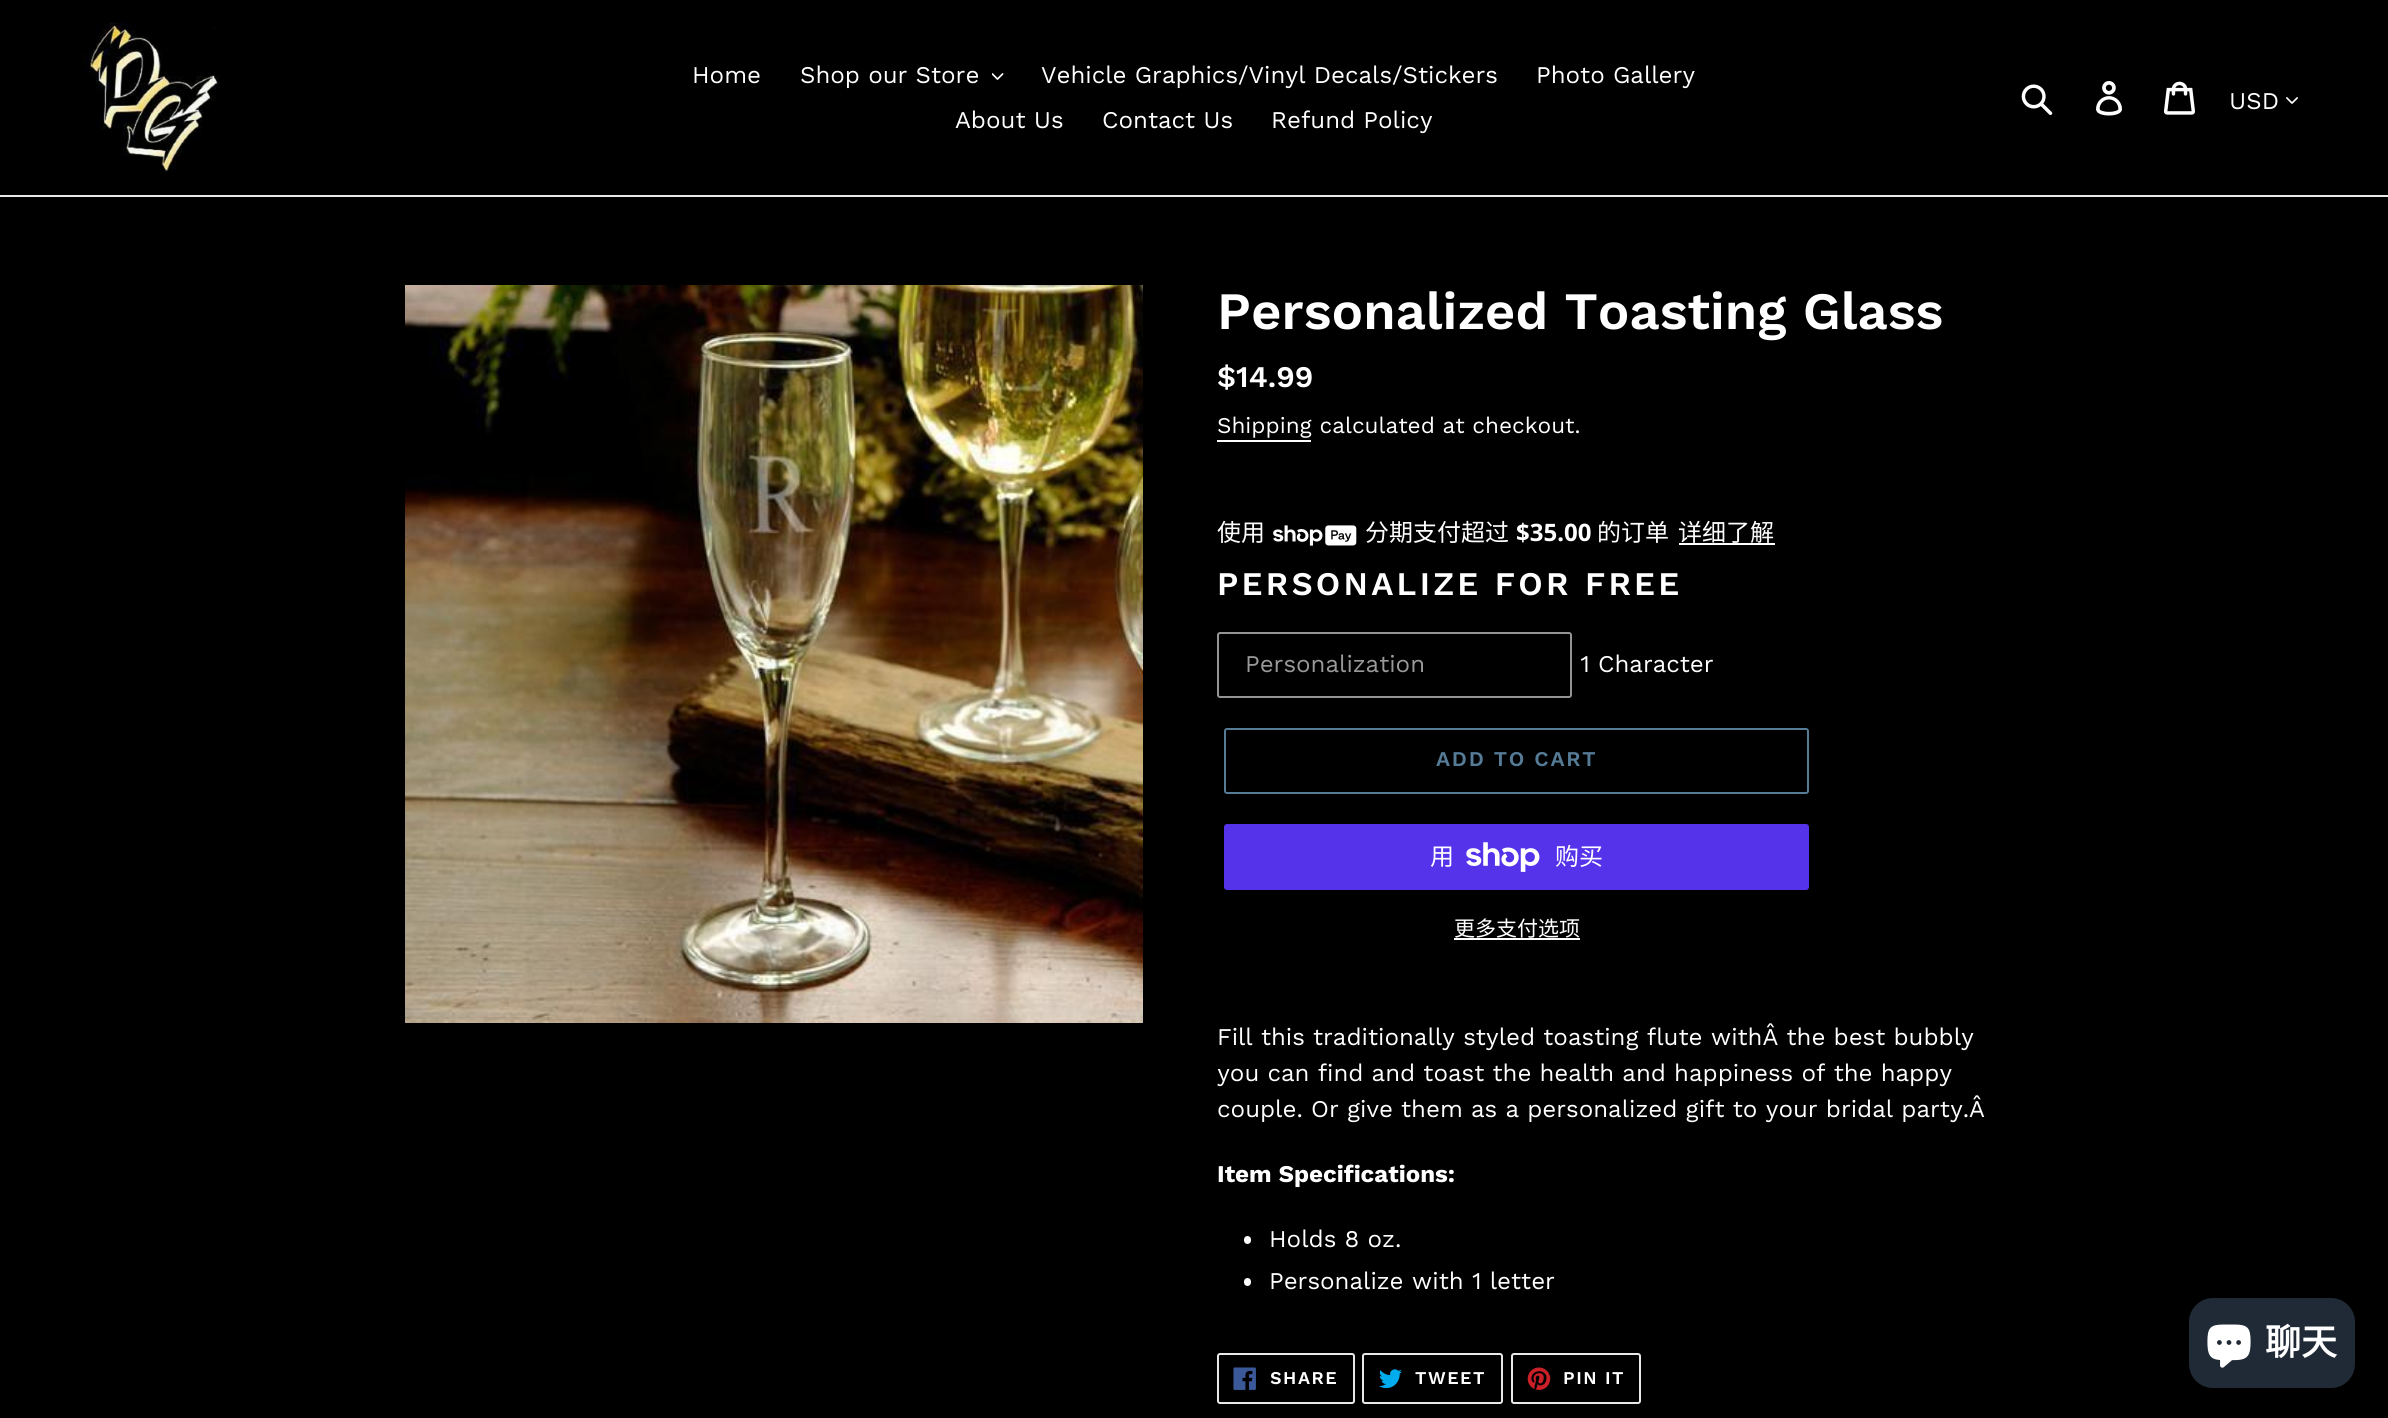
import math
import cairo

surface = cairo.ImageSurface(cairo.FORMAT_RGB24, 2388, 1418)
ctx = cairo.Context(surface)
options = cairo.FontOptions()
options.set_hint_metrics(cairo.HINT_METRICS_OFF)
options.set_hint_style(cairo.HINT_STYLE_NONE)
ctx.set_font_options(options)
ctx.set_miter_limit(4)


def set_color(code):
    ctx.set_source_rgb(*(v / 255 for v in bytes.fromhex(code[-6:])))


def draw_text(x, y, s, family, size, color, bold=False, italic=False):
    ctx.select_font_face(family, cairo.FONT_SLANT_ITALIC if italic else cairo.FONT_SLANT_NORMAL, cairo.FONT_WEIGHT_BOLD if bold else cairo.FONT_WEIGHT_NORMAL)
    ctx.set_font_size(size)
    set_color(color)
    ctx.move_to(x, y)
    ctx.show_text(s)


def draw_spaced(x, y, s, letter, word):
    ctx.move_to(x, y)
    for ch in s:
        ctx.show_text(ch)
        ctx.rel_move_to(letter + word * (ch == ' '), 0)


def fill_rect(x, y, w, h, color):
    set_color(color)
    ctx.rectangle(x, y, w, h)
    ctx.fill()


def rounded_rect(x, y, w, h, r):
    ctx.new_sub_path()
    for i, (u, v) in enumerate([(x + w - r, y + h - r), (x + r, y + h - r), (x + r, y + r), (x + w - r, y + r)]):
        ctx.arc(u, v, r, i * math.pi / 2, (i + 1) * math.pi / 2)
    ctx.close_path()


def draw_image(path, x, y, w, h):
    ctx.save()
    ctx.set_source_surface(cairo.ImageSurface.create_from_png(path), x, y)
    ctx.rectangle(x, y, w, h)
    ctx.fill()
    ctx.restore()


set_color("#000000")
ctx.paint()
fill_rect(0, 195, 2388, 2, "#e8e9eb")
draw_image("assets/img1.png", 82, 22, 138, 150)
draw_text(692, 83, "Home", "Work Sans", 24, "#ffffff")
draw_text(800, 83, "Shop our Store", "Work Sans", 24, "#ffffff")
draw_image("assets/img2.png", 992, 73, 12, 7)
draw_text(1041, 83, "Vehicle Graphics/Vinyl Decals/Stickers", "Work Sans", 24, "#ffffff")
draw_text(1536, 83, "Photo Gallery", "Work Sans", 24, "#ffffff")
draw_text(955, 128, "About Us", "Work Sans", 24, "#ffffff")
draw_text(1102, 128, "Contact Us", "Work Sans", 24, "#ffffff")
draw_text(1271, 128, "Refund Policy", "Work Sans", 24, "#ffffff")
draw_image("assets/img3.png", 2021, 84, 32, 32)
draw_image("assets/img4.png", 2096, 81, 26, 35)
draw_image("assets/img5.png", 2163, 81, 32, 34)
draw_text(2229, 109, "USD", "Work Sans", 24, "#ffffff")
draw_image("assets/img6.png", 2286, 97, 12, 7)
draw_image("assets/img7.png", 405, 285, 738, 738)
draw_text(1217, 329, "Personalized Toasting Glass", "Work Sans SemiBold", 52.5, "#ffffff")
draw_text(1217, 387, "$14.99", "Work Sans SemiBold", 30, "#ffffff")
draw_text(1217, 433, "Shipping calculated at checkout.", "Work Sans", 22.5, "#ffffff")
fill_rect(1217, 440, 94, 2, "#ffffff")
draw_text(1217, 541, "使用", "Noto Sans CJK SC", 24, "#ffffff")
draw_image("assets/img8.png", 1273, 525, 84, 21)
draw_text(1365, 541, "分期支付超过", "Noto Sans CJK SC", 24, "#ffffff")
draw_text(1516, 541, "$35.00", "Noto Sans", 24, "#ffffff", bold=True)
draw_text(1597, 541, "的订单", "Noto Sans CJK SC", 24, "#ffffff")
draw_text(1678, 541, "详细了解", "Noto Sans CJK SC", 24, "#ffffff")
fill_rect(1679, 543, 96, 2, "#ffffff")
ctx.select_font_face("Work Sans SemiBold")
ctx.set_font_size(33)
draw_spaced(1217, 595, "PERSONALIZE FOR FREE", 3.25, 0)
rounded_rect(1218, 633, 353, 64, 2)
set_color("#949494")
ctx.stroke()
draw_text(1245, 672, "Personalization", "Work Sans", 24, "#999999")
draw_text(1580, 672, "1 Character", "Work Sans", 24, "#ffffff")
rounded_rect(1225, 729, 583, 64, 2)
set_color("#557b97")
ctx.stroke()
ctx.select_font_face("Work Sans SemiBold")
ctx.set_font_size(21)
draw_spaced(1436, 766, "ADD TO CART", 1.75, 0)
set_color("#5433eb")
rounded_rect(1224, 824, 585, 66, 3)
ctx.fill()
draw_text(1430, 865, "用", "Noto Sans CJK SC", 24, "#ffffff")
draw_image("assets/img9.png", 1466, 842, 74, 30)
draw_text(1555, 865, "购买", "Noto Sans CJK SC", 24, "#ffffff")
draw_text(1454, 936, "更多支付选项", "Noto Sans CJK SC", 21, "#ffffff")
fill_rect(1454, 938, 126, 2, "#ffffff")
draw_text(1217, 1045, "Fill this traditionally styled toasting flute withÂ the best bubbly", "Work Sans", 24, "#ffffff")
draw_text(1217, 1081, "you can find and toast the health and happiness of the happy", "Work Sans", 24, "#ffffff")
draw_text(1217, 1117, "couple. Or give them as a personalized gift to your bridal party.Â", "Work Sans", 24, "#ffffff")
draw_text(1217, 1182, "Item Specifications:", "Work Sans", 24, "#ffffff", bold=True)
rounded_rect(1244, 1236, 7, 8, 3.5)
ctx.fill()
draw_text(1269, 1247, "Holds 8 oz.", "Work Sans", 24, "#ffffff")
rounded_rect(1244, 1278, 7, 8, 3.5)
ctx.fill()
draw_text(1269, 1289, "Personalize with 1 letter", "Work Sans", 24, "#ffffff")
rounded_rect(1218, 1354, 136, 49, 2)
set_color("#e8e9eb")
ctx.stroke()
draw_image("assets/img10.png", 1233, 1367, 23, 23)
ctx.select_font_face("Work Sans SemiBold")
ctx.set_font_size(18)
set_color("#ffffff")
draw_spaced(1270, 1384, "SHARE", 1.5, 0)
rounded_rect(1363, 1354, 139, 49, 2)
set_color("#e8e9eb")
ctx.stroke()
draw_image("assets/img11.png", 1379, 1369, 23, 20)
set_color("#ffffff")
draw_spaced(1415, 1384, "TWEET", 1.5, 0)
rounded_rect(1512, 1354, 128, 49, 2)
set_color("#e8e9eb")
ctx.stroke()
draw_image("assets/img12.png", 1527, 1367, 24, 23)
set_color("#ffffff")
draw_spaced(1563, 1384, "PIN IT", 1.5, 0)
set_color("#202a36")
rounded_rect(2189, 1298, 166, 90, 24)
ctx.fill()
draw_image("assets/img13.png", 2207, 1324, 44, 44)
draw_text(2265, 1355, "聊天", "Noto Sans CJK SC", 36, "#ffffff", bold=True)
surface.write_to_png("output.png")
